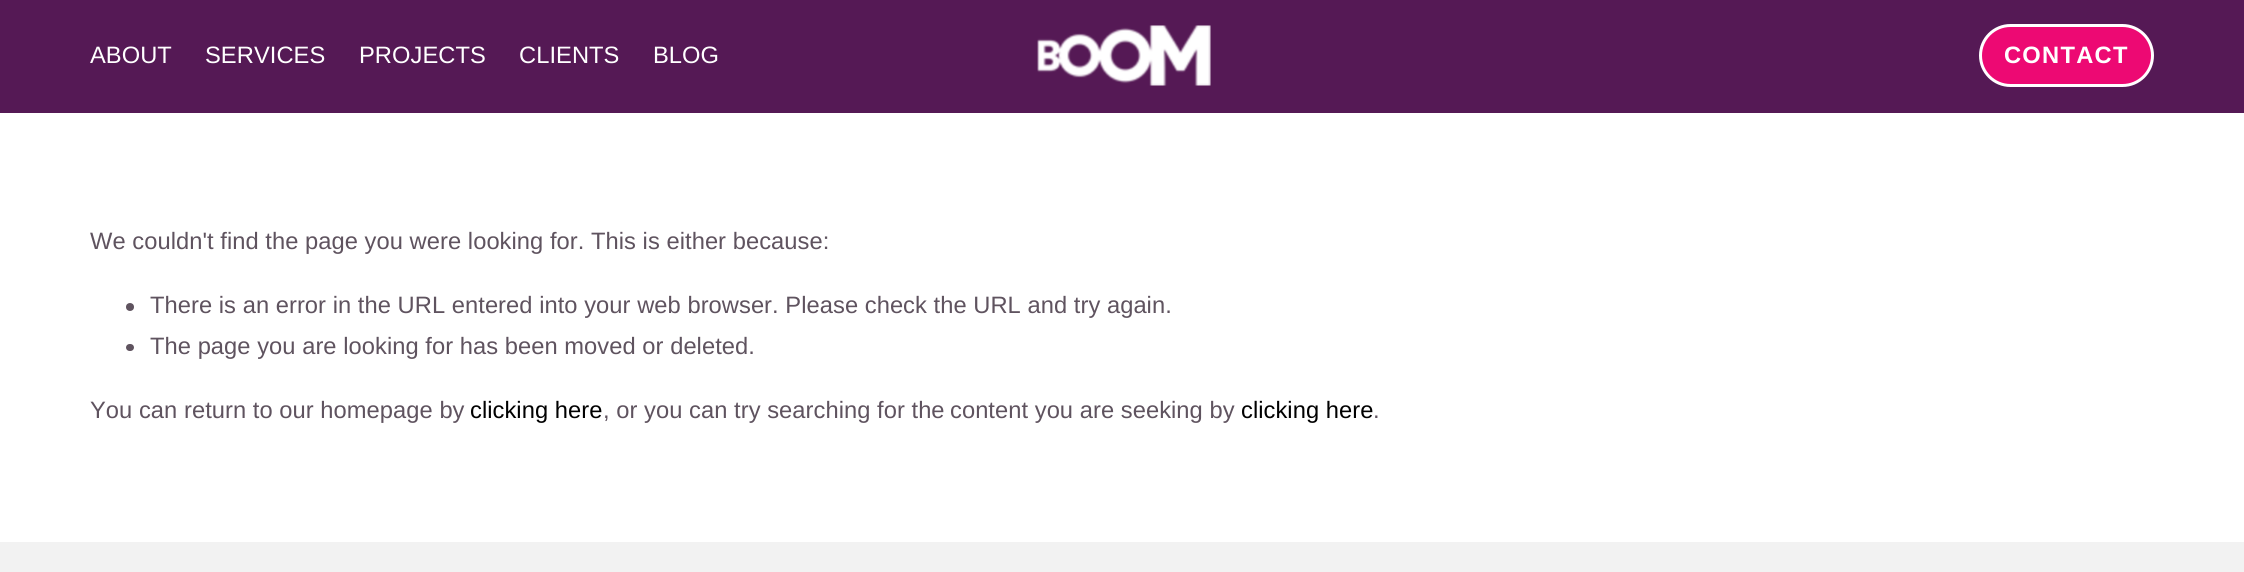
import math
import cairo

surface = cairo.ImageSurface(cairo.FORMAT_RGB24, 2244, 572)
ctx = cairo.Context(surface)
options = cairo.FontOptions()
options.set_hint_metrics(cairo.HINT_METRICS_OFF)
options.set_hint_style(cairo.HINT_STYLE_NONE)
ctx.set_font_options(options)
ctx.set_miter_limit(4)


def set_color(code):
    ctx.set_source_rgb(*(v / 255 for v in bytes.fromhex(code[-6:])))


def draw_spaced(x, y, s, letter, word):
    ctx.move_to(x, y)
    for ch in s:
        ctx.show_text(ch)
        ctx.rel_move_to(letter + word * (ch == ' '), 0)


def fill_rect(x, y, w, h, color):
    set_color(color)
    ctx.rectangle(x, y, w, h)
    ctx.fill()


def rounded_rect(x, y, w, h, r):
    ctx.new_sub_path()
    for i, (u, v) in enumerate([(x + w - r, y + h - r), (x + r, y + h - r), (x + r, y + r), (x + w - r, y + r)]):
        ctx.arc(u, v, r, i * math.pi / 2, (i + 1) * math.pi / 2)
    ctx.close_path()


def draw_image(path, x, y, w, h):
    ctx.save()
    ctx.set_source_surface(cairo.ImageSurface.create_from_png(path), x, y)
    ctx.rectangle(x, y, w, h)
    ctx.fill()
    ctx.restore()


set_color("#ffffff")
ctx.paint()
fill_rect(0, 0, 2244, 113, "#551955")
ctx.select_font_face("Liberation Sans")
ctx.set_font_size(23.7)
set_color("#ffffff")
draw_spaced(90, 63, "ABOUT", 0.05, 0)
draw_spaced(205, 63, "SERVICES", 0.05, 0)
draw_spaced(359, 63, "PROJECTS", 0.05, 0)
draw_spaced(519, 63, "CLIENTS", 0.05, 0)
draw_spaced(653, 63, "BLOG", 0.05, 0)
draw_image("assets/img1.png", 1037, 25, 174, 61)
set_color("#ed0973")
rounded_rect(1980.5, 25.5, 172, 60, 30)
ctx.fill_preserve()
set_color("#ffffff")
ctx.set_line_width(3)
ctx.stroke()
ctx.select_font_face("Liberation Sans", cairo.FONT_SLANT_NORMAL, cairo.FONT_WEIGHT_BOLD)
draw_spaced(2004, 63, "CONTACT", 1.25, 0)
ctx.select_font_face("Liberation Sans")
set_color("#5f535f")
draw_spaced(90, 249, "We couldn't find the page you were looking for. This is either because:", 0.05, 0)
ctx.new_path()
ctx.arc(130, 307, 4, 0, 2 * math.pi)
ctx.fill()
draw_spaced(150, 313, "There is an error in the URL entered into your web browser. Please check the URL and try again.", 0.05, 0)
rounded_rect(126, 344, 8, 7, 3.5)
ctx.fill()
draw_spaced(150, 354, "The page you are looking for has been moved or deleted.", 0.05, 0)
draw_spaced(90, 418, "You can return to our homepage by", 0.05, 0)
set_color("#000000")
draw_spaced(470, 418, "clicking here", 0.05, 0)
set_color("#5f535f")
draw_spaced(603, 418, ", or you can try searching for the", 0.05, 0)
draw_spaced(950, 418, "content you are seeking by", 0.05, 0)
set_color("#000000")
draw_spaced(1241, 418, "clicking here", 0.05, 0)
set_color("#5f535f")
draw_spaced(1373, 418, ".", 0.05, 0)
fill_rect(0, 542, 2244, 30, "#f2f2f2")
surface.write_to_png("output.png")
